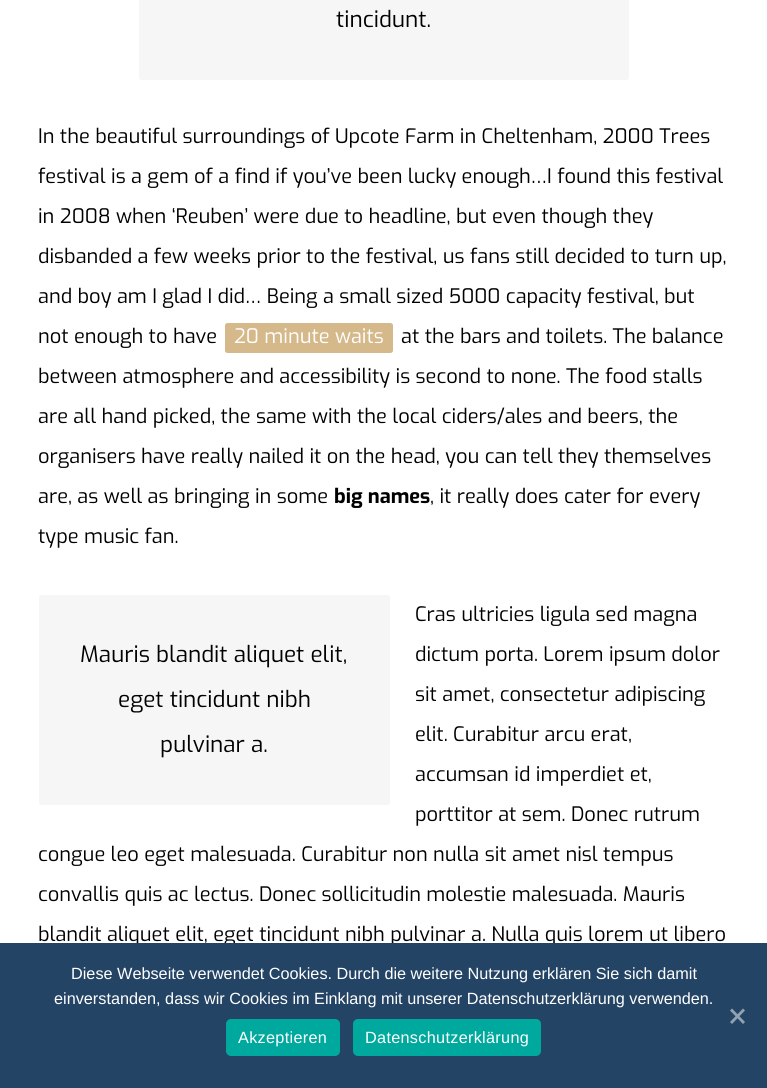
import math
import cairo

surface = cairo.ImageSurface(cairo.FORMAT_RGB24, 767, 1088)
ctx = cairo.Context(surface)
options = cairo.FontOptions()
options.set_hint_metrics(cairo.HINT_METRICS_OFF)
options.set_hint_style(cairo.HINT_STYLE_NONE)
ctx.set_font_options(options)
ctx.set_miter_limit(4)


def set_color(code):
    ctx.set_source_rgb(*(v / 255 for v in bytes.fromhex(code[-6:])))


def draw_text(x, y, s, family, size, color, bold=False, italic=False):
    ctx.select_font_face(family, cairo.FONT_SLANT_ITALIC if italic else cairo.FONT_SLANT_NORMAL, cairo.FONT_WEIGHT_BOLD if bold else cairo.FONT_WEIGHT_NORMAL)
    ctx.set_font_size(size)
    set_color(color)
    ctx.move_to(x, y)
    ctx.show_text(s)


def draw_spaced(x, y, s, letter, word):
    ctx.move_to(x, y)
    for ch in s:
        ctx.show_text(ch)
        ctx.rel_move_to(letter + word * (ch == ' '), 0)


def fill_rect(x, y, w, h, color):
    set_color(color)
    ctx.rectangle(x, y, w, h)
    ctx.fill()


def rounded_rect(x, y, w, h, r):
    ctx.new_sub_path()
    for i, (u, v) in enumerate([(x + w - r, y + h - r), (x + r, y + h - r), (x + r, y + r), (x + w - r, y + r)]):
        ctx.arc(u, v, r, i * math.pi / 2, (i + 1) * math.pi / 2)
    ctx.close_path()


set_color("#ffffff")
ctx.paint()
set_color("#f6f6f6")
rounded_rect(139, -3, 490, 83, 2.5)
ctx.fill()
draw_text(336, 27, "tincidunt.", "Exo", 22.5, "#000000")
draw_text(38, 143, "In the beautiful surroundings of Upcote Farm in Cheltenham, 2000 Trees", "Exo", 20, "#000000")
draw_text(38, 183, "festival is a gem of a find if you’ve been lucky enough…I found this festival", "Exo", 20, "#000000")
draw_text(38, 223, "in 2008 when ‘Reuben’ were due to headline, but even though they", "Exo", 20, "#000000")
draw_text(38, 263, "disbanded a few weeks prior to the festival, us fans still decided to turn up,", "Exo", 20, "#000000")
draw_text(38, 303, "and boy am I glad I did… Being a small sized 5000 capacity festival, but", "Exo", 20, "#000000")
draw_text(38, 343, "not enough to have", "Exo", 20, "#000000")
set_color("#d6b98a")
rounded_rect(225, 323, 168, 30, 2.5)
ctx.fill()
draw_text(234, 343, "20 minute waits", "Exo", 20, "#ffffff")
draw_text(401, 343, "at the bars and toilets. The balance", "Exo", 20, "#000000")
draw_text(38, 383, "between atmosphere and accessibility is second to none. The food stalls", "Exo", 20, "#000000")
draw_text(38, 423, "are all hand picked, the same with the local ciders/ales and beers, the", "Exo", 20, "#000000")
draw_text(38, 463, "organisers have really nailed it on the head, you can tell they themselves", "Exo", 20, "#000000")
draw_text(38, 503, "are, as well as bringing in some", "Exo", 20, "#000000")
draw_text(334, 503, "big names", "Exo", 20, "#000000", bold=True)
draw_text(430, 503, ", it really does cater for every", "Exo", 20, "#000000")
draw_text(38, 543, "type music fan.", "Exo", 20, "#000000")
draw_text(415, 621, "Cras ultricies ligula sed magna", "Exo", 20, "#000000")
set_color("#f6f6f6")
rounded_rect(39, 595, 351, 210, 2.5)
ctx.fill()
draw_text(80, 662, "Mauris blandit aliquet elit,", "Exo", 22.5, "#000000")
draw_text(118, 707, "eget tincidunt nibh", "Exo", 22.5, "#000000")
draw_text(160, 752, "pulvinar a.", "Exo", 22.5, "#000000")
draw_text(415, 661, "dictum porta. Lorem ipsum dolor", "Exo", 20, "#000000")
draw_text(415, 701, "sit amet, consectetur adipiscing", "Exo", 20, "#000000")
draw_text(415, 741, "elit. Curabitur arcu erat,", "Exo", 20, "#000000")
draw_text(415, 781, "accumsan id imperdiet et,", "Exo", 20, "#000000")
draw_text(415, 821, "porttitor at sem. Donec rutrum", "Exo", 20, "#000000")
draw_text(38, 861, "congue leo eget malesuada. Curabitur non nulla sit amet nisl tempus", "Exo", 20, "#000000")
draw_text(38, 901, "convallis quis ac lectus. Donec sollicitudin molestie malesuada. Mauris", "Exo", 20, "#000000")
draw_text(38, 941, "blandit aliquet elit, eget tincidunt nibh pulvinar a. Nulla quis lorem ut libero", "Exo", 20, "#000000")
fill_rect(0, 943, 767, 145, "#244465")
draw_text(71, 979, "Diese Webseite verwendet Cookies. Durch die weitere Nutzung erklären Sie sich damit", "Liberation Sans", 16.25, "#ffffff")
draw_text(54, 1004, "einverstanden, dass wir Cookies im Einklang mit unserer Datenschutzerklärung verwenden.", "Liberation Sans", 16.25, "#ffffff")
set_color("#92a2b2")
ctx.new_path()
ctx.move_to(743, 1008.5)
ctx.line_to(745, 1010.5)
ctx.line_to(732, 1024)
ctx.line_to(730, 1022)
ctx.close_path()
ctx.fill()
ctx.new_path()
ctx.move_to(730, 1010.5)
ctx.line_to(732, 1008.5)
ctx.line_to(745, 1022)
ctx.line_to(743, 1024)
ctx.close_path()
ctx.fill()
set_color("#00a99d")
rounded_rect(226, 1019, 114, 37, 5)
ctx.fill()
set_color("#ffffff")
draw_spaced(238, 1043, "Akzeptieren", 0.3, 0)
set_color("#00a99d")
rounded_rect(353, 1019, 188, 37, 5)
ctx.fill()
set_color("#ffffff")
draw_spaced(365, 1043, "Datenschutzerklärung", 0.3, 0)
surface.write_to_png("output.png")
